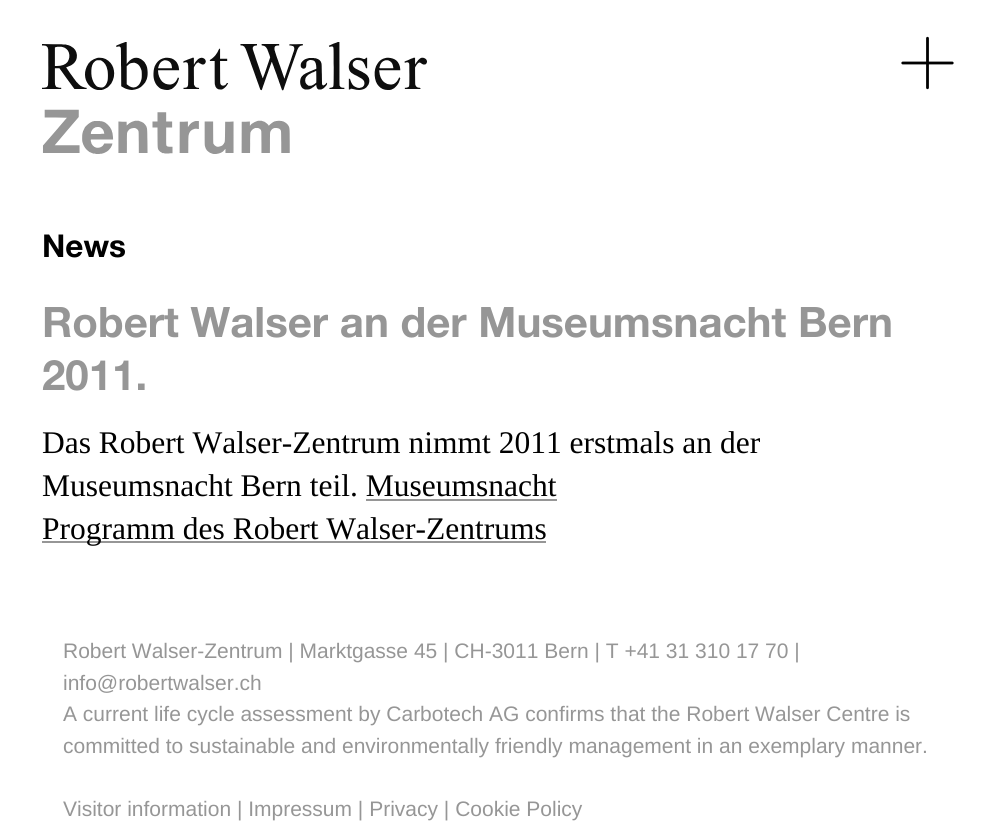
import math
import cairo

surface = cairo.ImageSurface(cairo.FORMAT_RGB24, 996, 836)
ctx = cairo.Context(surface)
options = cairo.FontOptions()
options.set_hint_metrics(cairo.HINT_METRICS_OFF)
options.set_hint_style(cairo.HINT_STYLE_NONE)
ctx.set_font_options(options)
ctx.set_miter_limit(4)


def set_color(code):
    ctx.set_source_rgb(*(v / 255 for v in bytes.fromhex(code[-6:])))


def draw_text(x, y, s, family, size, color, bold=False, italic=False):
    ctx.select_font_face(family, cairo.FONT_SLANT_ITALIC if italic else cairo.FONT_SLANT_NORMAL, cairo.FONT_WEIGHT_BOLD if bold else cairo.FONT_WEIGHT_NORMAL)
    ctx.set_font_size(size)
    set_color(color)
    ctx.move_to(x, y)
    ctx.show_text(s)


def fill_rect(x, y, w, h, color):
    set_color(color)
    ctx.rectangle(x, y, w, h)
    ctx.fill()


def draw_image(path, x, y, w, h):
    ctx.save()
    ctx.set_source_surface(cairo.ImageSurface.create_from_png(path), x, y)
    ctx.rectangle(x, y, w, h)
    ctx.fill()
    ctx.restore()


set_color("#ffffff")
ctx.paint()
draw_image("assets/img1.png", 42, 42, 385, 112)
draw_image("assets/img2.png", 901, 36, 53, 54)
draw_text(42, 257, "News", "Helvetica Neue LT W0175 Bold", 31.5, "#000000", bold=True)
draw_text(42, 337, "Robert Walser an der Museumsnacht Bern", "Helvetica Neue LT W0175 Bold", 42, "#969696", bold=True)
draw_text(42, 390, "2011.", "Helvetica Neue LT W0175 Bold", 42, "#969696", bold=True)
draw_text(42, 453, "Das Robert Walser-Zentrum nimmt 2011 erstmals an der", "Liberation Serif", 31.5, "#000000")
draw_text(42, 496, "Museumsnacht Bern teil. Museumsnacht", "Liberation Serif", 31.5, "#000000")
fill_rect(366, 499, 191, 2, "#969696")
fill_rect(42, 541, 504, 2, "#969696")
draw_text(42, 539, "Programm des Robert Walser-Zentrums", "Liberation Serif", 31.5, "#000000")
draw_text(63, 658, "Robert Walser-Zentrum | Marktgasse 45 | CH-3011 Bern | T +41 31 310 17 70 |", "Liberation Sans", 21, "#969696")
draw_text(63, 690, "info@robertwalser.ch", "Liberation Sans", 21, "#969696")
draw_text(63, 721, "A current life cycle assessment by Carbotech AG confirms that the Robert Walser Centre is", "Liberation Sans", 21, "#969696")
draw_text(63, 753, "committed to sustainable and environmentally friendly management in an exemplary manner.", "Liberation Sans", 21, "#969696")
draw_text(63, 816, "Visitor information | Impressum | Privacy | Cookie Policy", "Liberation Sans", 21, "#969696")
surface.write_to_png("output.png")
